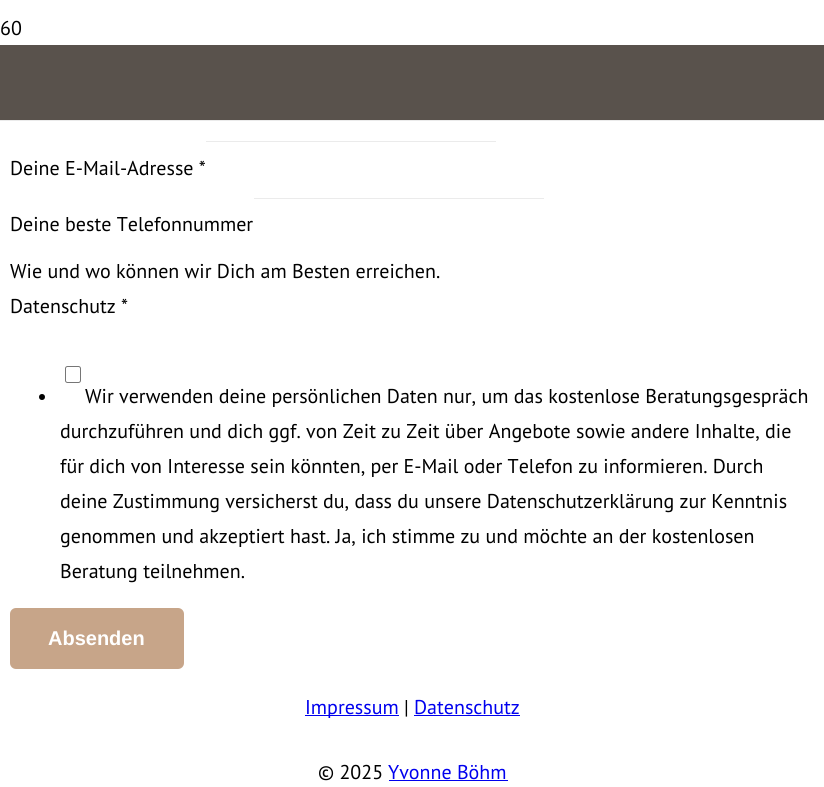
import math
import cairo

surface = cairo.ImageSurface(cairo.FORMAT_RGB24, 824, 787)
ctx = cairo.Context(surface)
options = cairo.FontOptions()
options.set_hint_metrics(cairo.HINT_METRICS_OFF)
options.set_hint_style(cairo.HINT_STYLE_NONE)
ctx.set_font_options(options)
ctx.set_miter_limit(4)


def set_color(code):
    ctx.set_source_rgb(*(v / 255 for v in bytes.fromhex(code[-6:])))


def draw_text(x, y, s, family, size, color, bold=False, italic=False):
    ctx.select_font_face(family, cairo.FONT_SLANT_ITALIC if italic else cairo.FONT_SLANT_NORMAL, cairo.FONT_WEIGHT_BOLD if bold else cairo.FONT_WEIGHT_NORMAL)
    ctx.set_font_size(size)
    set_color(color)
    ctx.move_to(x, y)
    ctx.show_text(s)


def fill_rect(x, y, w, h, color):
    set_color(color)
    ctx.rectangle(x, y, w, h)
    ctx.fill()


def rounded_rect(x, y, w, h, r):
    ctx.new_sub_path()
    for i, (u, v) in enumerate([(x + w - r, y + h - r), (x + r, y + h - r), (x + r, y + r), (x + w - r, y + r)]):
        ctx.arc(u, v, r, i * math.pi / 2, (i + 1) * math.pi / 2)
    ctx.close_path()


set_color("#ffffff")
ctx.paint()
draw_text(0, 35, "60", "PT Sans", 20, "#000000")
fill_rect(0, 120, 824, 1, "#ebebeb")
fill_rect(0, 45, 824, 75, "#59524c")
fill_rect(206, 141, 290, 1, "#ebebeb")
draw_text(10, 175, "Deine E-Mail-Adresse *", "PT Sans", 20, "#000000")
fill_rect(254, 198, 290, 1, "#ebebeb")
draw_text(10, 231, "Deine beste Telefonnummer", "PT Sans", 20, "#000000")
draw_text(10, 278, "Wie und wo können wir Dich am Besten erreichen.", "PT Sans", 20, "#000000")
draw_text(10, 313, "Datenschutz *", "PT Sans", 20, "#000000")
rounded_rect(65.5, 366.5, 15, 16, 2)
set_color("#767676")
ctx.set_line_width(1)
ctx.stroke()
set_color("#000000")
ctx.arc(42, 397, 3, 0, 2 * math.pi)
ctx.fill()
draw_text(85, 403, "Wir verwenden deine persönlichen Daten nur, um das kostenlose Beratungsgespräch", "PT Sans", 20, "#000000")
draw_text(60, 438, "durchzuführen und dich ggf. von Zeit zu Zeit über Angebote sowie andere Inhalte, die", "PT Sans", 20, "#000000")
draw_text(60, 473, "für dich von Interesse sein könnten, per E-Mail oder Telefon zu informieren. Durch", "PT Sans", 20, "#000000")
draw_text(60, 508, "deine Zustimmung versicherst du, dass du unsere Datenschutzerklärung zur Kenntnis", "PT Sans", 20, "#000000")
draw_text(60, 543, "genommen und akzeptiert hast. Ja, ich stimme zu und möchte an der kostenlosen", "PT Sans", 20, "#000000")
draw_text(60, 578, "Beratung teilnehmen.", "PT Sans", 20, "#000000")
set_color("#c7a589")
rounded_rect(10, 608, 174, 61, 6)
ctx.fill()
draw_text(48, 645, "Absenden", "Liberation Sans", 20, "#ffffff", bold=True)
fill_rect(305, 715, 94, 1, "#0000ee")
draw_text(305, 714, "Impressum", "PT Sans", 20, "#0000ee")
draw_text(404, 714, "|", "PT Sans", 20, "#000000")
draw_text(414, 714, "Datenschutz", "PT Sans", 20, "#0000ee")
fill_rect(414, 715, 106, 1, "#0000ee")
draw_text(318, 779, "© 2025", "PT Sans", 20, "#000000")
draw_text(388, 779, "Yvonne Böhm", "PT Sans", 20, "#0000ee")
fill_rect(389, 780, 119, 1, "#0000ee")
surface.write_to_png("output.png")
